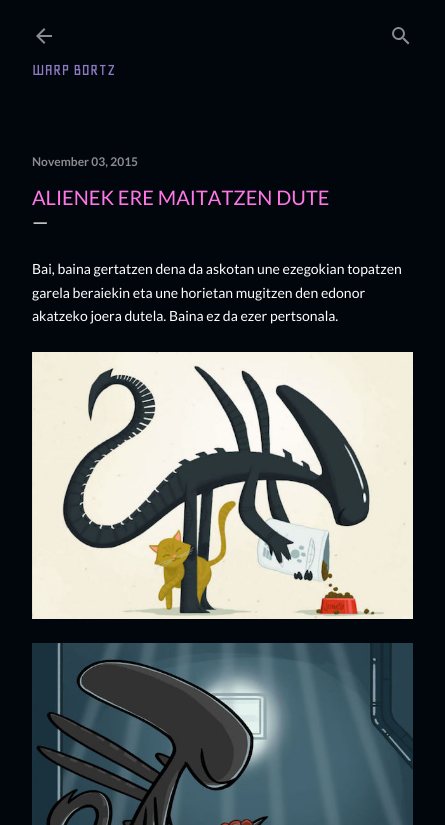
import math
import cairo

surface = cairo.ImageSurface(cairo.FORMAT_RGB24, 445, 825)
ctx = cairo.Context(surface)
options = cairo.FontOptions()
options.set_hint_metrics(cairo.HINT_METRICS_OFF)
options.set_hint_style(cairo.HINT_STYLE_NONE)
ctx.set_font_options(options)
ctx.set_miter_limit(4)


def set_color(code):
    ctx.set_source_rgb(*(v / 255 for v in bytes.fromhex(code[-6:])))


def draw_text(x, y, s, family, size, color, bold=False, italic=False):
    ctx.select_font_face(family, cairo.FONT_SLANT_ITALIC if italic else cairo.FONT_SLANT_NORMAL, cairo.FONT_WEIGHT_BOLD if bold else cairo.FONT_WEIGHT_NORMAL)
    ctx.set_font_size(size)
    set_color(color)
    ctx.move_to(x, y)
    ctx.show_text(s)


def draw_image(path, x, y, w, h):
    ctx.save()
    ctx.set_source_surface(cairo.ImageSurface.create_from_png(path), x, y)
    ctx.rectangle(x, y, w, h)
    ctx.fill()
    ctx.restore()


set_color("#01050c")
ctx.paint()
draw_image("assets/img1.png", 36, 28, 16, 16)
draw_image("assets/img2.png", 392, 27, 18, 18)
draw_text(32, 75, "WARP BORTZ", "Geo", 18, "#8e7cc3")
draw_text(32, 166, "November 03, 2015", "Lato", 12, "#8a8c8f", bold=True)
draw_text(32, 205, "ALIENEK ERE MAITATZEN DUTE", "Lato", 20, "#ff77e4")
draw_text(32, 229, "—", "Lato", 20, "#ffffff")
draw_text(32, 274, "Bai, baina gertatzen dena da askotan une ezegokian topatzen", "Lato", 14, "#ffffff")
draw_text(32, 298, "garela beraiekin eta une horietan mugitzen den edonor", "Lato", 14, "#ffffff")
draw_text(32, 321, "akatzeko joera dutela. Baina ez da ezer pertsonala.", "Lato", 14, "#ffffff")
draw_image("assets/img3.png", 32, 352, 381, 267)
draw_image("assets/img4.png", 32, 643, 381, 182)
surface.write_to_png("output.png")
